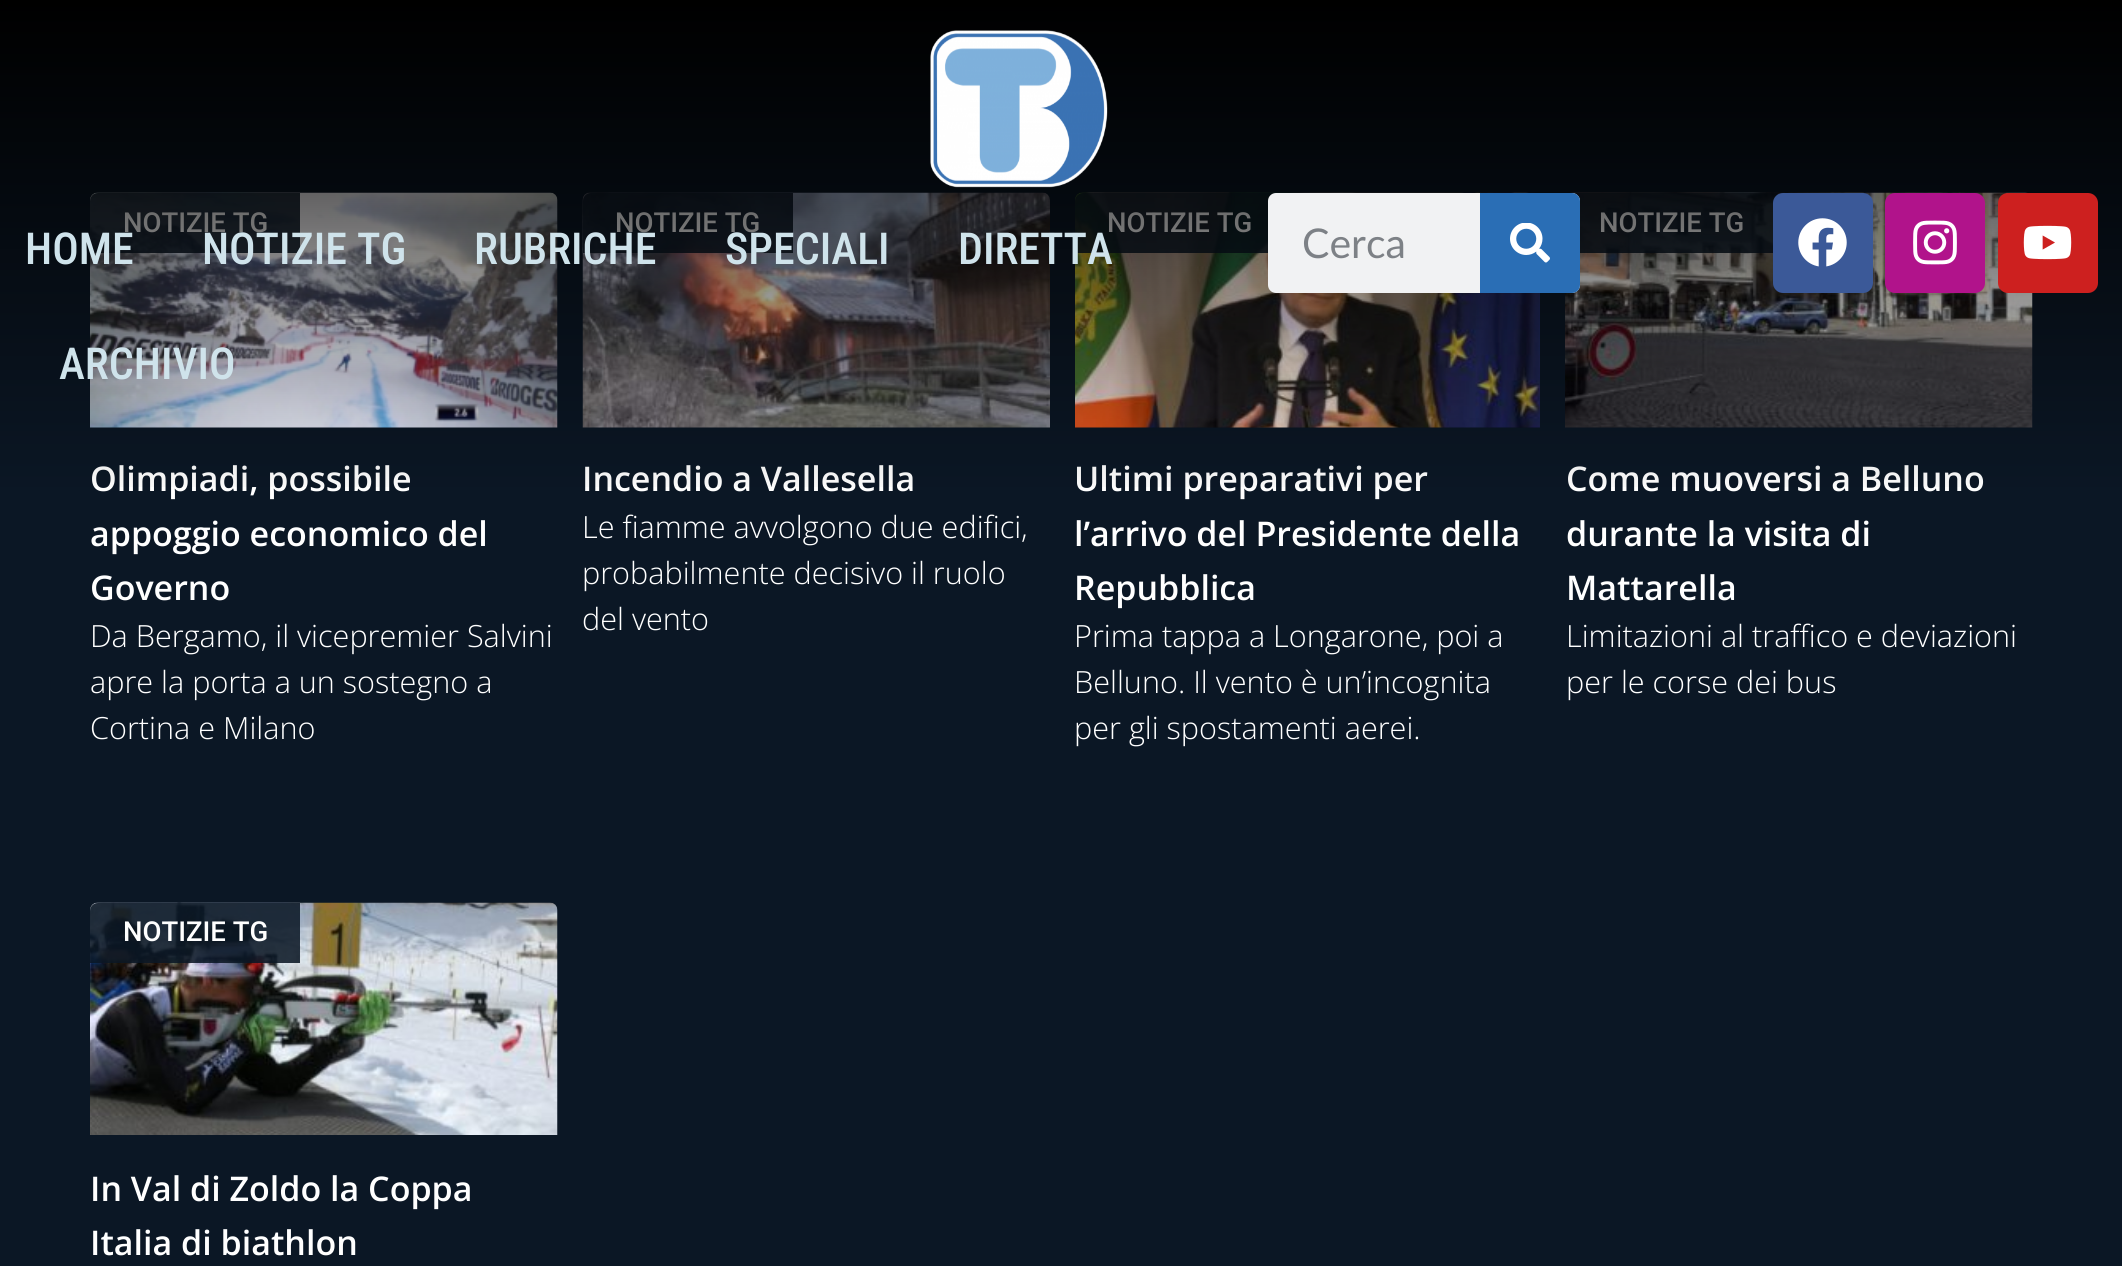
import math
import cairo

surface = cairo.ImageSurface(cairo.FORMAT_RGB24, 2122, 1266)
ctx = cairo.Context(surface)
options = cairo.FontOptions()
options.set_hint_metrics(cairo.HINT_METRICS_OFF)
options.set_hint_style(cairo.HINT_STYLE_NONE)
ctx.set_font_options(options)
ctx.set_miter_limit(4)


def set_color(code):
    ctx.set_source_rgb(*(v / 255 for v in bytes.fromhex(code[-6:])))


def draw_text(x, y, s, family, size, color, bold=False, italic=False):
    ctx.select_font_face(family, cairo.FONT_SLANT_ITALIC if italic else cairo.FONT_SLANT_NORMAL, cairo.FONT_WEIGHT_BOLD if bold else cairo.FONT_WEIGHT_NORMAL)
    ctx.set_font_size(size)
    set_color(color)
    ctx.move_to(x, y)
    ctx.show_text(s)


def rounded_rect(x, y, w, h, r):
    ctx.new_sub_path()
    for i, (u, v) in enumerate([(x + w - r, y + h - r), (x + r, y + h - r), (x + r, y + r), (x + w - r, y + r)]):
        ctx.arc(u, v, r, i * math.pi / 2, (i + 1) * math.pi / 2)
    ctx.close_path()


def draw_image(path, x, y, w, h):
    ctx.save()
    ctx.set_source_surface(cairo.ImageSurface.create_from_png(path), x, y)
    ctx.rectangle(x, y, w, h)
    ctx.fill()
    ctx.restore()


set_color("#0b1725")
ctx.paint()
draw_image("assets/img1.png", 90, 192, 468, 236)
ctx.set_source_rgba(0.043, 0.09, 0.145, 0.87)
ctx.new_path()
ctx.move_to(98, 193)
ctx.line_to(300, 193)
ctx.line_to(300, 253)
ctx.line_to(90, 253)
ctx.line_to(90, 201)
ctx.curve_to(90, 196.5, 93.5, 193, 98, 193)
ctx.close_path()
ctx.fill()
draw_text(123, 232, "NOTIZIE TG", "Roboto Medium", 27.5, "#ffffff")
draw_text(90, 491, "Olimpiadi, possibile", "Open Sans SemiBold", 34, "#ffffff")
draw_text(90, 546, "appoggio economico del", "Open Sans SemiBold", 34, "#ffffff")
draw_text(90, 600, "Governo", "Open Sans SemiBold", 34, "#ffffff")
draw_text(90, 647, "Da Bergamo, il vicepremier Salvini", "Open Sans Light", 30.6, "#ffffff")
draw_text(90, 693, "apre la porta a un sostegno a", "Open Sans Light", 30.6, "#ffffff")
draw_text(90, 739, "Cortina e Milano", "Open Sans Light", 30.6, "#ffffff")
draw_image("assets/img2.png", 582, 192, 468, 236)
ctx.set_source_rgba(0.043, 0.09, 0.145, 0.87)
ctx.new_path()
ctx.move_to(591, 193)
ctx.line_to(793, 193)
ctx.line_to(793, 253)
ctx.line_to(583, 253)
ctx.line_to(583, 201)
ctx.curve_to(583, 196.5, 586.5, 193, 591, 193)
ctx.close_path()
ctx.fill()
draw_text(615, 232, "NOTIZIE TG", "Roboto Medium", 27.5, "#ffffff")
draw_text(582, 491, "Incendio a Vallesella", "Open Sans SemiBold", 34, "#ffffff")
draw_text(582, 538, "Le fiamme avvolgono due edifici,", "Open Sans Light", 30.6, "#ffffff")
draw_text(582, 584, "probabilmente decisivo il ruolo", "Open Sans Light", 30.6, "#ffffff")
draw_text(582, 630, "del vento", "Open Sans Light", 30.6, "#ffffff")
draw_image("assets/img3.png", 1075, 192, 465, 236)
ctx.set_source_rgba(0.043, 0.09, 0.145, 0.87)
ctx.new_path()
ctx.move_to(1083, 193)
ctx.line_to(1285, 193)
ctx.line_to(1285, 253)
ctx.line_to(1075, 253)
ctx.line_to(1075, 201)
ctx.curve_to(1075, 196.5, 1078.5, 193, 1083, 193)
ctx.close_path()
ctx.fill()
draw_text(1107, 232, "NOTIZIE TG", "Roboto Medium", 27.5, "#ffffff")
draw_text(1074, 491, "Ultimi preparativi per", "Open Sans SemiBold", 34, "#ffffff")
draw_text(1074, 546, "l’arrivo del Presidente della", "Open Sans SemiBold", 34, "#ffffff")
draw_text(1074, 600, "Repubblica", "Open Sans SemiBold", 34, "#ffffff")
draw_text(1074, 647, "Prima tappa a Longarone, poi a", "Open Sans Light", 30.6, "#ffffff")
draw_text(1074, 693, "Belluno. Il vento è un’incognita", "Open Sans Light", 30.6, "#ffffff")
draw_text(1074, 739, "per gli spostamenti aerei.", "Open Sans Light", 30.6, "#ffffff")
draw_image("assets/img4.png", 1565, 192, 468, 236)
ctx.set_source_rgba(0.043, 0.09, 0.145, 0.87)
ctx.rectangle(1572, 193, 206, 60)
ctx.fill()
draw_text(1599, 232, "NOTIZIE TG", "Roboto Medium", 27.5, "#ffffff")
draw_text(1566, 491, "Come muoversi a Belluno", "Open Sans SemiBold", 34, "#ffffff")
draw_text(1566, 546, "durante la visita di", "Open Sans SemiBold", 34, "#ffffff")
draw_text(1566, 600, "Mattarella", "Open Sans SemiBold", 34, "#ffffff")
draw_text(1566, 647, "Limitazioni al traffico e deviazioni", "Open Sans Light", 30.6, "#ffffff")
draw_text(1566, 693, "per le corse dei bus", "Open Sans Light", 30.6, "#ffffff")
draw_image("assets/img5.png", 90, 902, 468, 233)
ctx.set_source_rgba(0.043, 0.09, 0.145, 0.87)
ctx.new_path()
ctx.move_to(98, 903)
ctx.line_to(300, 903)
ctx.line_to(300, 963)
ctx.line_to(90, 963)
ctx.line_to(90, 911)
ctx.curve_to(90, 906.5, 93.5, 903, 98, 903)
ctx.close_path()
ctx.fill()
draw_text(123, 941, "NOTIZIE TG", "Roboto Medium", 27.5, "#ffffff")
draw_text(90, 1201, "In Val di Zoldo la Coppa", "Open Sans SemiBold", 34, "#ffffff")
draw_text(90, 1255, "Italia di biathlon", "Open Sans SemiBold", 34, "#ffffff")
gradient = cairo.LinearGradient(1061, 0, 1061, 498)
gradient.add_color_stop_rgba(0, 0, 0, 0, 1)
gradient.add_color_stop_rgba(1, 0, 0, 0, 0)
ctx.set_source(gradient)
ctx.rectangle(0, 0, 2122, 487)
ctx.fill()
draw_image("assets/img6.png", 930, 30, 178, 158)
draw_text(25, 264, "HOME", "Roboto Condensed Medium", 44, "#cfe3eb")
draw_text(202, 264, "NOTIZIE TG", "Roboto Condensed Medium", 44, "#cfe3eb")
draw_text(474, 264, "RUBRICHE", "Roboto Condensed Medium", 44, "#cfe3eb")
draw_text(725, 264, "SPECIALI", "Roboto Condensed Medium", 44, "#cfe3eb")
draw_text(958, 264, "DIRETTA", "Roboto Condensed Medium", 44, "#cfe3eb")
draw_text(59, 379, "ARCHIVIO", "Roboto Condensed Medium", 44, "#cfe3eb")
set_color("#f1f2f3")
rounded_rect(1268, 193, 312, 100, 8)
ctx.fill()
draw_text(1302, 258, "Cerca", "Lato", 41, "#7d8186")
set_color("#2a6eb5")
ctx.new_path()
ctx.move_to(1480, 193)
ctx.line_to(1572, 193)
ctx.curve_to(1576.5, 193, 1580, 196.5, 1580, 201)
ctx.line_to(1580, 285)
ctx.curve_to(1580, 289.5, 1576.5, 293, 1572, 293)
ctx.line_to(1480, 293)
ctx.close_path()
ctx.fill()
draw_image("assets/img7.png", 1510, 223, 40, 40)
set_color("#3b5998")
rounded_rect(1773, 193, 100, 100, 10)
ctx.fill()
draw_image("assets/img8.png", 1798, 218, 49, 49)
set_color("#b1138b")
rounded_rect(1885, 193, 100, 100, 10)
ctx.fill()
draw_image("assets/img9.png", 1913, 220, 44, 45)
set_color("#cd201f")
rounded_rect(1998, 193, 100, 100, 10)
ctx.fill()
draw_image("assets/img10.png", 2023, 225, 49, 35)
surface.write_to_png("output.png")
